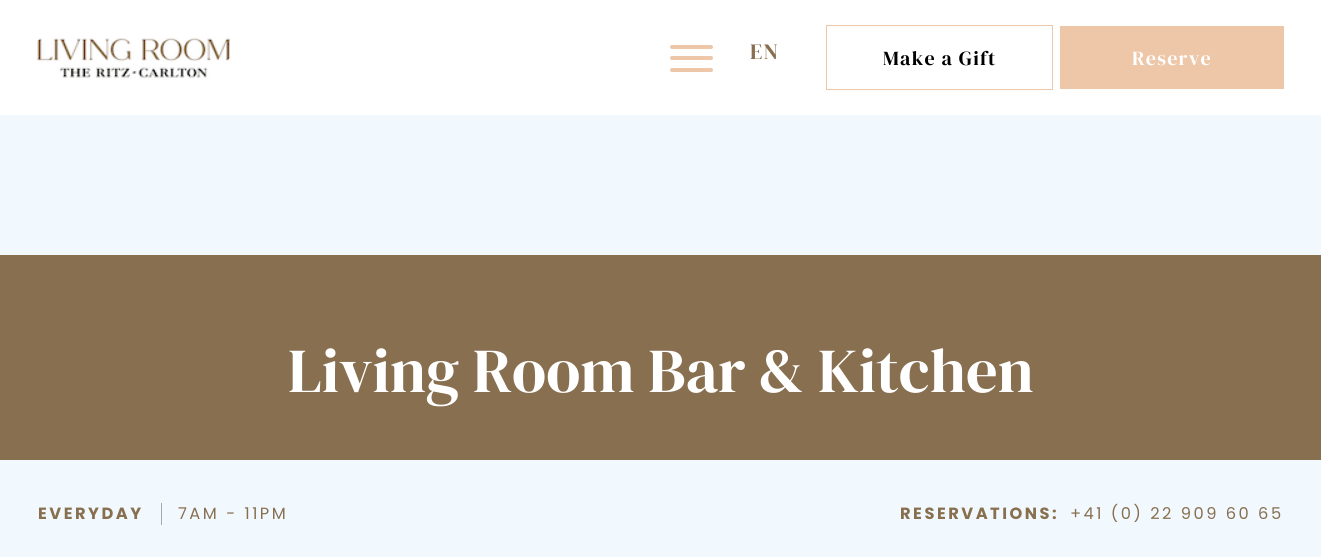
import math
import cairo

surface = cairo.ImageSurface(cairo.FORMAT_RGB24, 1321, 557)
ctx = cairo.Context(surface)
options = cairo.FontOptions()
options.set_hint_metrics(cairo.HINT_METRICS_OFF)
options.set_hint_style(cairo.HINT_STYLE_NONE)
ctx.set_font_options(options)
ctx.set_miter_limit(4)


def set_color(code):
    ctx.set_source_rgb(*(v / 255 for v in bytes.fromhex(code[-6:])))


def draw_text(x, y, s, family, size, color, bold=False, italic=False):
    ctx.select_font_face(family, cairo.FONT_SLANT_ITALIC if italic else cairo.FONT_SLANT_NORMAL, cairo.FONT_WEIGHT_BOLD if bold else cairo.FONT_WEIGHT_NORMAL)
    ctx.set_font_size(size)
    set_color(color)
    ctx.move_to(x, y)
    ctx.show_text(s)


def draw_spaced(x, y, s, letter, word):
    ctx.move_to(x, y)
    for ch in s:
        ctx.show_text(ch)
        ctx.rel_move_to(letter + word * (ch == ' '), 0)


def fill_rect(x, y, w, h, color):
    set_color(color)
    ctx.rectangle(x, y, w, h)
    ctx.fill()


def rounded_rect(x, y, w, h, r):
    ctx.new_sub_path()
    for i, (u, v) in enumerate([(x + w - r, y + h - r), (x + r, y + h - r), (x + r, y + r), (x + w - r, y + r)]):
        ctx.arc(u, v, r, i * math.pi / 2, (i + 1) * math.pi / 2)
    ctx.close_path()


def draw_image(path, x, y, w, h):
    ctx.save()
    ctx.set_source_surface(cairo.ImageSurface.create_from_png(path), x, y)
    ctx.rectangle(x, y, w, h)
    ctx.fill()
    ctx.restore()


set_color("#f1f9fe")
ctx.paint()
fill_rect(0, 0, 1321, 115, "#ffffff")
draw_image("assets/img1.png", 37, 37, 193, 42)
set_color("#edc7a7")
rounded_rect(670, 45, 43, 4, 2)
ctx.fill()
rounded_rect(670, 56, 43, 4, 2)
ctx.fill()
rounded_rect(670, 68, 43, 4, 2)
ctx.fill()
ctx.select_font_face("DM Serif Display")
ctx.set_font_size(22)
set_color("#886f50")
draw_spaced(750, 59, "EN", 1.25, 0)
ctx.rectangle(826.5, 25.5, 226, 64)
set_color("#edc7a7")
ctx.set_line_width(1)
ctx.stroke()
ctx.set_font_size(20)
set_color("#000000")
draw_spaced(883, 65, "Make a Gift", 1.25, 0)
fill_rect(1060, 26, 224, 63, "#edc7a7")
set_color("#ffffff")
draw_spaced(1132, 65, "Reserve", 1.25, 0)
fill_rect(0, 255, 1321, 205, "#886f50")
draw_text(288, 392, "Living Room Bar & Kitchen", "DM Serif Display", 62.5, "#ffffff")
ctx.select_font_face("Poppins", cairo.FONT_SLANT_NORMAL, cairo.FONT_WEIGHT_BOLD)
ctx.set_font_size(16.25)
set_color("#886f50")
draw_spaced(38, 519, "EVERYDAY", 2.5, 0)
fill_rect(161, 503, 1, 22, "#aaa7ad")
ctx.select_font_face("Poppins")
set_color("#886f50")
draw_spaced(178, 519, "7AM - 11PM", 2.5, 0)
ctx.select_font_face("Poppins", cairo.FONT_SLANT_NORMAL, cairo.FONT_WEIGHT_BOLD)
draw_spaced(900, 519, "RESERVATIONS:", 2.5, 0)
ctx.select_font_face("Poppins")
draw_spaced(1070, 519, "+41 (0) 22 909 60 65", 2.5, 0)
surface.write_to_png("output.png")
